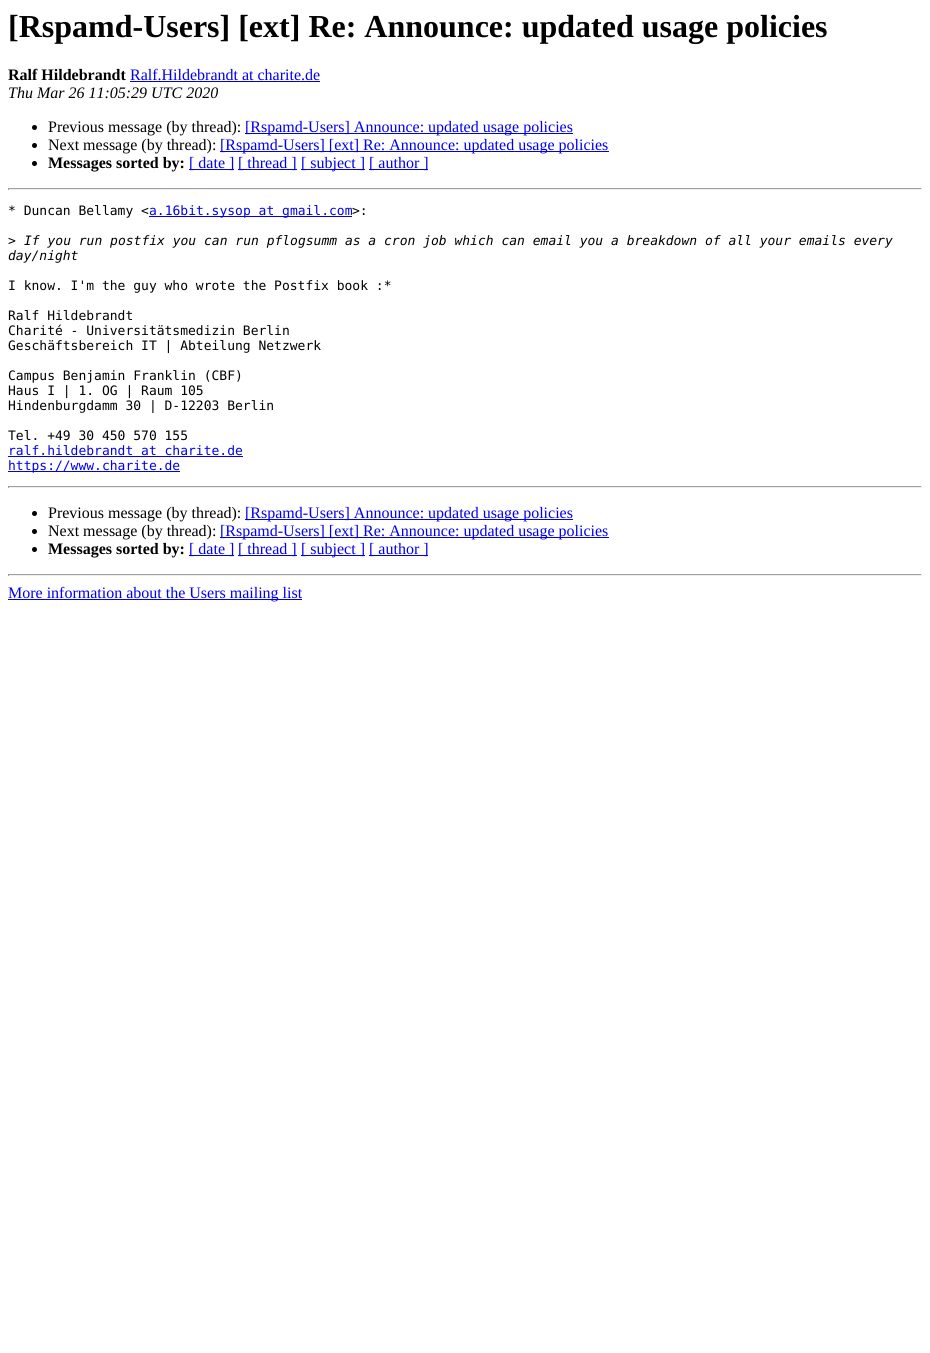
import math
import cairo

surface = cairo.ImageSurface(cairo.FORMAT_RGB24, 930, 1353)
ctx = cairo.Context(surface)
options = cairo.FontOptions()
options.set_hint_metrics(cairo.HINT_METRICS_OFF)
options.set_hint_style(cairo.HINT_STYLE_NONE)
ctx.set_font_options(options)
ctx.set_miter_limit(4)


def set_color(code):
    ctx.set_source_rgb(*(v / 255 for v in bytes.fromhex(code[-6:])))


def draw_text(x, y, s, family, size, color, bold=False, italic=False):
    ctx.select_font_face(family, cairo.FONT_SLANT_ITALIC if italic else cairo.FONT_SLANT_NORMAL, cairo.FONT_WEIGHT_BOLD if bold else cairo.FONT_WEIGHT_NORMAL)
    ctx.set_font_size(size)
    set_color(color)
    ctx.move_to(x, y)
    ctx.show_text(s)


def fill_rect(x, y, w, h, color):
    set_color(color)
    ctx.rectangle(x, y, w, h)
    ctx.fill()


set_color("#ffffff")
ctx.paint()
draw_text(8, 37, "[Rspamd-Users] [ext] Re: Announce: updated usage policies", "Liberation Serif", 32, "#000000", bold=True)
draw_text(8, 80, "Ralf Hildebrandt", "Liberation Serif", 16, "#000000", bold=True)
draw_text(130, 80, "Ralf.Hildebrandt at charite.de", "Liberation Serif", 16, "#0000ee")
fill_rect(130, 81, 190, 1, "#0000ee")
draw_text(8, 98, "Thu Mar 26 11:05:29 UTC 2020", "Liberation Serif", 16, "#000000", italic=True)
ctx.new_path()
ctx.arc(34.5, 127.5, 2.5, 0, 2 * math.pi)
ctx.fill()
draw_text(48, 132, "Previous message (by thread):", "Liberation Serif", 16, "#000000")
fill_rect(245, 133, 328, 1, "#0000ee")
draw_text(245, 132, "[Rspamd-Users] Announce: updated usage policies", "Liberation Serif", 16, "#0000ee")
set_color("#000000")
ctx.new_path()
ctx.arc(34.5, 145.5, 2.5, 0, 2 * math.pi)
ctx.fill()
draw_text(48, 150, "Next message (by thread):", "Liberation Serif", 16, "#000000")
fill_rect(220, 151, 389, 1, "#0000ee")
draw_text(220, 150, "[Rspamd-Users] [ext] Re: Announce: updated usage policies", "Liberation Serif", 16, "#0000ee")
set_color("#000000")
ctx.new_path()
ctx.arc(34.5, 163.5, 2.5, 0, 2 * math.pi)
ctx.fill()
draw_text(48, 168, "Messages sorted by:", "Liberation Serif", 16, "#000000", bold=True)
fill_rect(189, 169, 45, 1, "#0000ee")
draw_text(189, 168, "[ date ]", "Liberation Serif", 16, "#0000ee")
fill_rect(238, 169, 59, 1, "#0000ee")
draw_text(238, 168, "[ thread ]", "Liberation Serif", 16, "#0000ee")
fill_rect(301, 169, 64, 1, "#0000ee")
draw_text(301, 168, "[ subject ]", "Liberation Serif", 16, "#0000ee")
fill_rect(369, 169, 59, 1, "#0000ee")
draw_text(369, 168, "[ author ]", "Liberation Serif", 16, "#0000ee")
fill_rect(8, 188, 914, 1, "#9f9f9f")
fill_rect(921, 188, 1, 2, "#eeeeee")
fill_rect(8, 189, 914, 1, "#eeeeee")
fill_rect(8, 188, 1, 2, "#9f9f9f")
draw_text(8, 215, "* Duncan Bellamy <", "DejaVu Sans Mono", 13, "#000000")
fill_rect(149, 216, 203, 1, "#0000ee")
draw_text(149, 215, "a.16bit.sysop at gmail.com", "DejaVu Sans Mono", 13, "#0000ee")
draw_text(352, 215, ">:", "DejaVu Sans Mono", 13, "#000000")
draw_text(8, 245, ">", "DejaVu Sans Mono", 13, "#000000")
draw_text(24, 245, "If you run postfix you can run pflogsumm as a cron job which can email you a breakdown of all your emails every", "DejaVu Sans Mono", 13, "#000000", italic=True)
draw_text(8, 260, "day/night", "DejaVu Sans Mono", 13, "#000000", italic=True)
draw_text(8, 290, "I know. I'm the guy who wrote the Postfix book :*", "DejaVu Sans Mono", 13, "#000000")
draw_text(8, 320, "Ralf Hildebrandt", "DejaVu Sans Mono", 13, "#000000")
draw_text(8, 335, "Charité - Universitätsmedizin Berlin", "DejaVu Sans Mono", 13, "#000000")
draw_text(8, 350, "Geschäftsbereich IT | Abteilung Netzwerk", "DejaVu Sans Mono", 13, "#000000")
draw_text(8, 380, "Campus Benjamin Franklin (CBF)", "DejaVu Sans Mono", 13, "#000000")
draw_text(8, 395, "Haus I | 1. OG | Raum 105", "DejaVu Sans Mono", 13, "#000000")
draw_text(8, 410, "Hindenburgdamm 30 | D-12203 Berlin", "DejaVu Sans Mono", 13, "#000000")
draw_text(8, 440, "Tel. +49 30 450 570 155", "DejaVu Sans Mono", 13, "#000000")
draw_text(8, 455, "ralf.hildebrandt at charite.de", "DejaVu Sans Mono", 13, "#0000ee")
fill_rect(8, 456, 235, 1, "#0000ee")
fill_rect(8, 471, 172, 1, "#0000ee")
draw_text(8, 470, "https://www.charite.de", "DejaVu Sans Mono", 13, "#0000ee")
fill_rect(8, 486, 914, 1, "#9f9f9f")
fill_rect(921, 486, 1, 2, "#eeeeee")
fill_rect(8, 487, 914, 1, "#eeeeee")
fill_rect(8, 486, 1, 2, "#9f9f9f")
set_color("#000000")
ctx.new_path()
ctx.arc(34.5, 513.5, 2.5, 0, 2 * math.pi)
ctx.fill()
draw_text(48, 518, "Previous message (by thread):", "Liberation Serif", 16, "#000000")
fill_rect(245, 519, 328, 1, "#0000ee")
draw_text(245, 518, "[Rspamd-Users] Announce: updated usage policies", "Liberation Serif", 16, "#0000ee")
set_color("#000000")
ctx.new_path()
ctx.arc(34.5, 531.5, 2.5, 0, 2 * math.pi)
ctx.fill()
draw_text(48, 536, "Next message (by thread):", "Liberation Serif", 16, "#000000")
fill_rect(220, 537, 389, 1, "#0000ee")
draw_text(220, 536, "[Rspamd-Users] [ext] Re: Announce: updated usage policies", "Liberation Serif", 16, "#0000ee")
set_color("#000000")
ctx.new_path()
ctx.arc(34.5, 549.5, 2.5, 0, 2 * math.pi)
ctx.fill()
draw_text(48, 554, "Messages sorted by:", "Liberation Serif", 16, "#000000", bold=True)
fill_rect(189, 555, 45, 1, "#0000ee")
draw_text(189, 554, "[ date ]", "Liberation Serif", 16, "#0000ee")
fill_rect(238, 555, 59, 1, "#0000ee")
draw_text(238, 554, "[ thread ]", "Liberation Serif", 16, "#0000ee")
fill_rect(301, 555, 64, 1, "#0000ee")
draw_text(301, 554, "[ subject ]", "Liberation Serif", 16, "#0000ee")
fill_rect(369, 555, 59, 1, "#0000ee")
draw_text(369, 554, "[ author ]", "Liberation Serif", 16, "#0000ee")
fill_rect(8, 574, 914, 1, "#9f9f9f")
fill_rect(921, 574, 1, 2, "#eeeeee")
fill_rect(8, 575, 914, 1, "#eeeeee")
fill_rect(8, 574, 1, 2, "#9f9f9f")
fill_rect(8, 599, 294, 1, "#0000ee")
draw_text(8, 598, "More information about the Users mailing list", "Liberation Serif", 16, "#0000ee")
surface.write_to_png("output.png")
